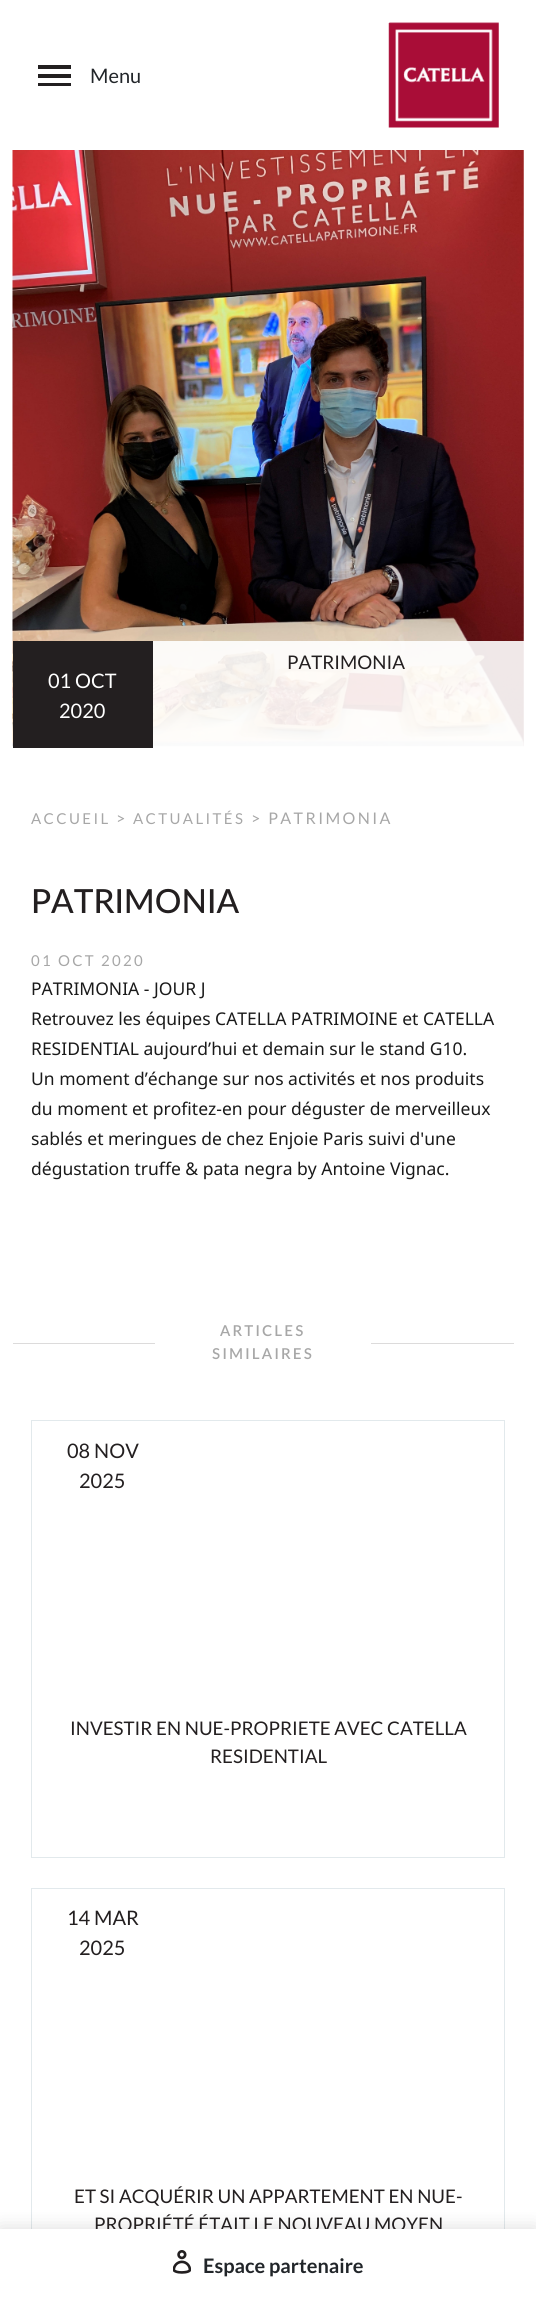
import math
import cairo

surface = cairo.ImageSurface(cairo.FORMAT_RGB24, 536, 2301)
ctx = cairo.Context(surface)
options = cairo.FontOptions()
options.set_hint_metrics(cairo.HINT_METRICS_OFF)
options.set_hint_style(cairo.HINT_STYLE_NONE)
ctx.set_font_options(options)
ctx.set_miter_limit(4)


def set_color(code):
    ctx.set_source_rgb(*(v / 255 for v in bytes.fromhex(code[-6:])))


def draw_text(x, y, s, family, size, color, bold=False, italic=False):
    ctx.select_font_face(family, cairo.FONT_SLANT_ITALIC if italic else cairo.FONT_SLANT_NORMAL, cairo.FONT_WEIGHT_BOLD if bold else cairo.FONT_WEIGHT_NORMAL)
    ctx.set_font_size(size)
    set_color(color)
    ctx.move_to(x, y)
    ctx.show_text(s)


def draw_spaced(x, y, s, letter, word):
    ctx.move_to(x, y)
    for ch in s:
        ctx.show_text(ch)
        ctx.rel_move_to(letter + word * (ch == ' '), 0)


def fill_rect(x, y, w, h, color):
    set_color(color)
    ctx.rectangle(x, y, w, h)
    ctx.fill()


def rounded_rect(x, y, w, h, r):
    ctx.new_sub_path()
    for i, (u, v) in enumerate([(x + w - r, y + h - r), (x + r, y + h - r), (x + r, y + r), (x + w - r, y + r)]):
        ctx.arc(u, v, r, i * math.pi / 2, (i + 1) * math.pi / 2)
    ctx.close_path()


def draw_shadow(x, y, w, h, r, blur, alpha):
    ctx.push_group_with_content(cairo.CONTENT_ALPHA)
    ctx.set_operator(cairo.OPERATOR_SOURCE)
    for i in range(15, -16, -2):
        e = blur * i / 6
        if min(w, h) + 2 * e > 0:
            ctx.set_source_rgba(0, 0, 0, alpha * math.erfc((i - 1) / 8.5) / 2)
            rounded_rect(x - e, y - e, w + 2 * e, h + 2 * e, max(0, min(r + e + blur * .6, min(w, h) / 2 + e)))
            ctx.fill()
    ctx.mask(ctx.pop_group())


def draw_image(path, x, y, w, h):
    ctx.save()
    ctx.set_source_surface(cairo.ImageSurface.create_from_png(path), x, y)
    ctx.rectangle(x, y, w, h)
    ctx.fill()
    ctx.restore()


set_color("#ffffff")
ctx.paint()
fill_rect(38, 65, 33, 4, "#221f20")
fill_rect(38, 74, 33, 4, "#221f20")
fill_rect(38, 83, 33, 3, "#221f20")
draw_text(90, 83, "Menu", "Lato", 20, "#212529")
draw_image("assets/img1.png", 388, 22, 111, 106)
ctx.rectangle(31.5, 1888.5, 473, 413)
set_color("#e2e9ec")
ctx.set_line_width(1)
ctx.stroke()
set_color("#231f20")
draw_shadow(0, 2229, 536, 72, 0, 9.5, 0.16)
draw_text(94, 2231, "PROPRIÉTÉ ÉTAIT LE NOUVEAU MOYEN", "Lato", 18.75, "#231f20")
fill_rect(0, 2229, 536, 72, "#ffffff")
draw_image("assets/img2.png", 173, 2250, 18, 24)
draw_text(203, 2273, "Espace partenaire", "Lato", 20, "#212529", bold=True)
draw_image("assets/img3.png", 12, 150, 512, 597)
ctx.set_source_rgba(1, 1, 1, 0.9)
ctx.rectangle(153, 641, 371, 106)
ctx.fill()
draw_text(287, 669, "PATRIMONIA", "Lato", 18.75, "#231f20")
fill_rect(13, 641, 140, 107, "#231f20")
draw_text(48, 688, "01 OCT", "Lato", 20, "#ffffff")
draw_text(59, 718, "2020", "Lato", 20, "#ffffff")
ctx.set_font_size(15)
set_color("#a7a7a7")
draw_spaced(31, 824, "ACCUEIL", 2.4, 0)
ctx.set_font_size(16)
draw_spaced(116, 824, ">", 2.4, 0)
ctx.set_font_size(15)
draw_spaced(133, 824, "ACTUALITÉS", 2.4, 0)
ctx.set_font_size(16)
draw_spaced(251, 824, "> PATRIMONIA", 2.4, 0)
draw_text(31, 913, "PATRIMONIA", "Lato Medium", 33.25, "#231f20")
ctx.select_font_face("Lato")
ctx.set_font_size(15)
set_color("#a7a7a7")
draw_spaced(31, 966, "01 OCT 2020", 2.25, 0)
draw_text(31, 995, "PATRIMONIA - JOUR J", "Noto Sans", 17.5, "#1a1a1a")
draw_text(31, 1025, "Retrouvez les équipes CATELLA PATRIMOINE et CATELLA", "Noto Sans", 17.5, "#1a1a1a")
draw_text(31, 1055, "RESIDENTIAL aujourd’hui et demain sur le stand G10.", "Noto Sans", 17.5, "#1a1a1a")
draw_text(31, 1085, "Un moment d’échange sur nos activités et nos produits", "Noto Sans", 17.5, "#1a1a1a")
draw_text(31, 1115, "du moment et profitez-en pour déguster de merveilleux", "Noto Sans", 17.5, "#1a1a1a")
draw_text(31, 1145, "sablés et meringues de chez Enjoie Paris suivi d'une", "Noto Sans", 17.5, "#1a1a1a")
draw_text(31, 1175, "dégustation truffe & pata negra by Antoine Vignac.", "Noto Sans", 17.5, "#1a1a1a")
fill_rect(13, 1343, 142, 1, "#dcdbdb")
ctx.select_font_face("Lato SemiBold")
ctx.set_font_size(15)
set_color("#a7a7a7")
draw_spaced(220, 1336, "ARTICLES", 2.25, 0)
draw_spaced(212, 1359, "SIMILAIRES", 2.25, 0)
fill_rect(371, 1343, 143, 1, "#dcdbdb")
ctx.rectangle(31.5, 1420.5, 473, 437)
set_color("#e2e9ec")
ctx.stroke()
draw_text(67, 1458, "08 NOV", "Lato", 20, "#231f20")
draw_text(79, 1488, "2025", "Lato", 20, "#231f20")
draw_text(70, 1735, "INVESTIR EN NUE-PROPRIETE AVEC CATELLA", "Lato", 18.75, "#231f20")
draw_text(210, 1763, "RESIDENTIAL", "Lato", 18.75, "#231f20")
draw_text(67, 1925, "14 MAR", "Lato", 20, "#231f20")
draw_text(79, 1955, "2025", "Lato", 20, "#231f20")
draw_text(74, 2203, "ET SI ACQUÉRIR UN APPARTEMENT EN NUE-", "Lato", 18.75, "#231f20")
surface.write_to_png("output.png")
